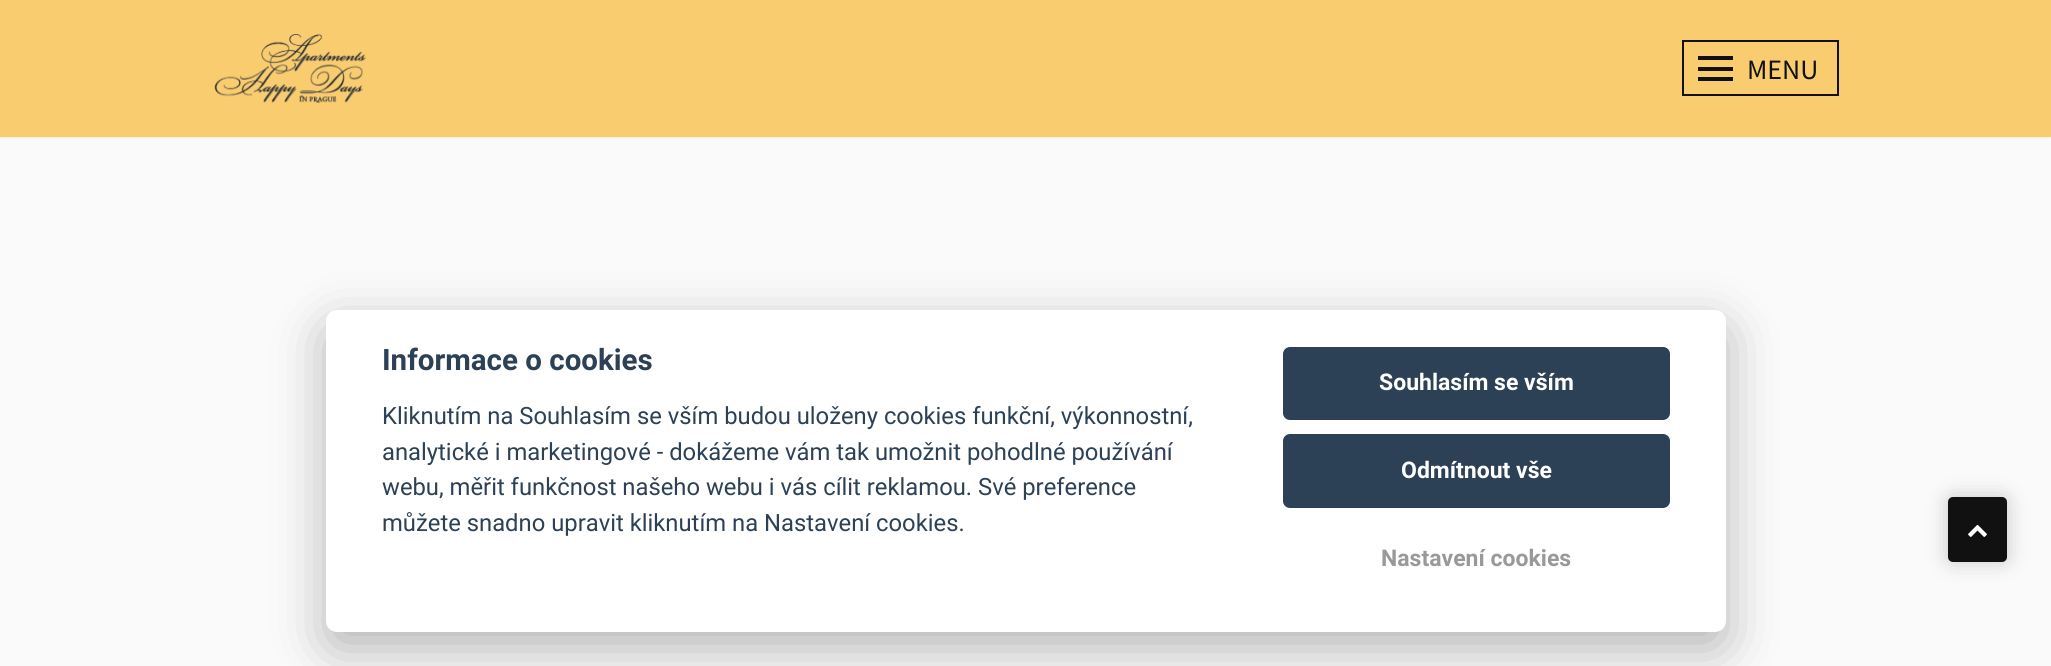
import math
import cairo

surface = cairo.ImageSurface(cairo.FORMAT_RGB24, 2051, 666)
ctx = cairo.Context(surface)
options = cairo.FontOptions()
options.set_hint_metrics(cairo.HINT_METRICS_OFF)
options.set_hint_style(cairo.HINT_STYLE_NONE)
ctx.set_font_options(options)
ctx.set_miter_limit(4)


def set_color(code):
    ctx.set_source_rgb(*(v / 255 for v in bytes.fromhex(code[-6:])))


def draw_text(x, y, s, family, size, color, bold=False, italic=False):
    ctx.select_font_face(family, cairo.FONT_SLANT_ITALIC if italic else cairo.FONT_SLANT_NORMAL, cairo.FONT_WEIGHT_BOLD if bold else cairo.FONT_WEIGHT_NORMAL)
    ctx.set_font_size(size)
    set_color(color)
    ctx.move_to(x, y)
    ctx.show_text(s)


def fill_rect(x, y, w, h, color):
    set_color(color)
    ctx.rectangle(x, y, w, h)
    ctx.fill()


def rounded_rect(x, y, w, h, r):
    ctx.new_sub_path()
    for i, (u, v) in enumerate([(x + w - r, y + h - r), (x + r, y + h - r), (x + r, y + r), (x + w - r, y + r)]):
        ctx.arc(u, v, r, i * math.pi / 2, (i + 1) * math.pi / 2)
    ctx.close_path()


def draw_shadow(x, y, w, h, r, blur, alpha):
    ctx.push_group_with_content(cairo.CONTENT_ALPHA)
    ctx.set_operator(cairo.OPERATOR_SOURCE)
    for i in range(15, -16, -2):
        e = blur * i / 6
        if min(w, h) + 2 * e > 0:
            ctx.set_source_rgba(0, 0, 0, alpha * math.erfc((i - 1) / 8.5) / 2)
            rounded_rect(x - e, y - e, w + 2 * e, h + 2 * e, max(0, min(r + e + blur * .6, min(w, h) / 2 + e)))
            ctx.fill()
    ctx.mask(ctx.pop_group())


def draw_image(path, x, y, w, h):
    ctx.save()
    ctx.set_source_surface(cairo.ImageSurface.create_from_png(path), x, y)
    ctx.rectangle(x, y, w, h)
    ctx.fill()
    ctx.restore()


set_color("#fafafa")
ctx.paint()
set_color("#000000")
draw_shadow(0, 2, 2051, 136, 0, 1, 0.05)
fill_rect(0, 0, 2051, 137, "#f9cc70")
draw_image("assets/img1.png", 214, 34, 152, 70)
ctx.rectangle(1683, 41, 155, 54)
set_color("#111111")
ctx.stroke()
fill_rect(1698, 67, 35, 4, "#111111")
fill_rect(1698, 56, 35, 4, "#111111")
fill_rect(1698, 77, 35, 4, "#111111")
draw_text(1747, 79, "MENU", "Source Sans Pro", 28, "#111111")
set_color("#020203")
draw_shadow(326, 327, 1400, 322, 11, 26, 0.28)
set_color("#ffffff")
rounded_rect(326, 310, 1400, 322, 11)
ctx.fill()
draw_text(382, 370, "Informace o cookies", "Roboto", 29.5, "#2d4156", bold=True)
draw_text(382, 424, "Kliknutím na Souhlasím se vším budou uloženy cookies funkční, výkonnostní,", "Roboto", 23.8, "#2d4156")
draw_text(382, 460, "analytické i marketingové - dokážeme vám tak umožnit pohodlné používání", "Roboto", 23.8, "#2d4156")
draw_text(382, 495, "webu, měřit funkčnost našeho webu i vás cílit reklamou. Své preference", "Roboto", 23.8, "#2d4156")
draw_text(382, 531, "můžete snadno upravit kliknutím na Nastavení cookies.", "Roboto", 23.8, "#2d4156")
rounded_rect(1283, 347, 387, 73, 7)
ctx.fill()
draw_text(1379, 390, "Souhlasím se vším", "Roboto", 23, "#ffffff", bold=True)
set_color("#2d4156")
rounded_rect(1283, 434, 387, 74, 7)
ctx.fill()
draw_text(1401, 478, "Odmítnout vše", "Roboto", 23, "#ffffff", bold=True)
draw_text(1381, 566, "Nastavení cookies", "Roboto", 23, "#999999", bold=True)
set_color("#000000")
draw_shadow(1948, 497, 59, 65, 5, 10.5, 0.2)
set_color("#111111")
rounded_rect(1948, 497, 59, 65, 5)
ctx.fill()
draw_image("assets/img2.png", 1968, 524, 19, 13)
surface.write_to_png("output.png")
